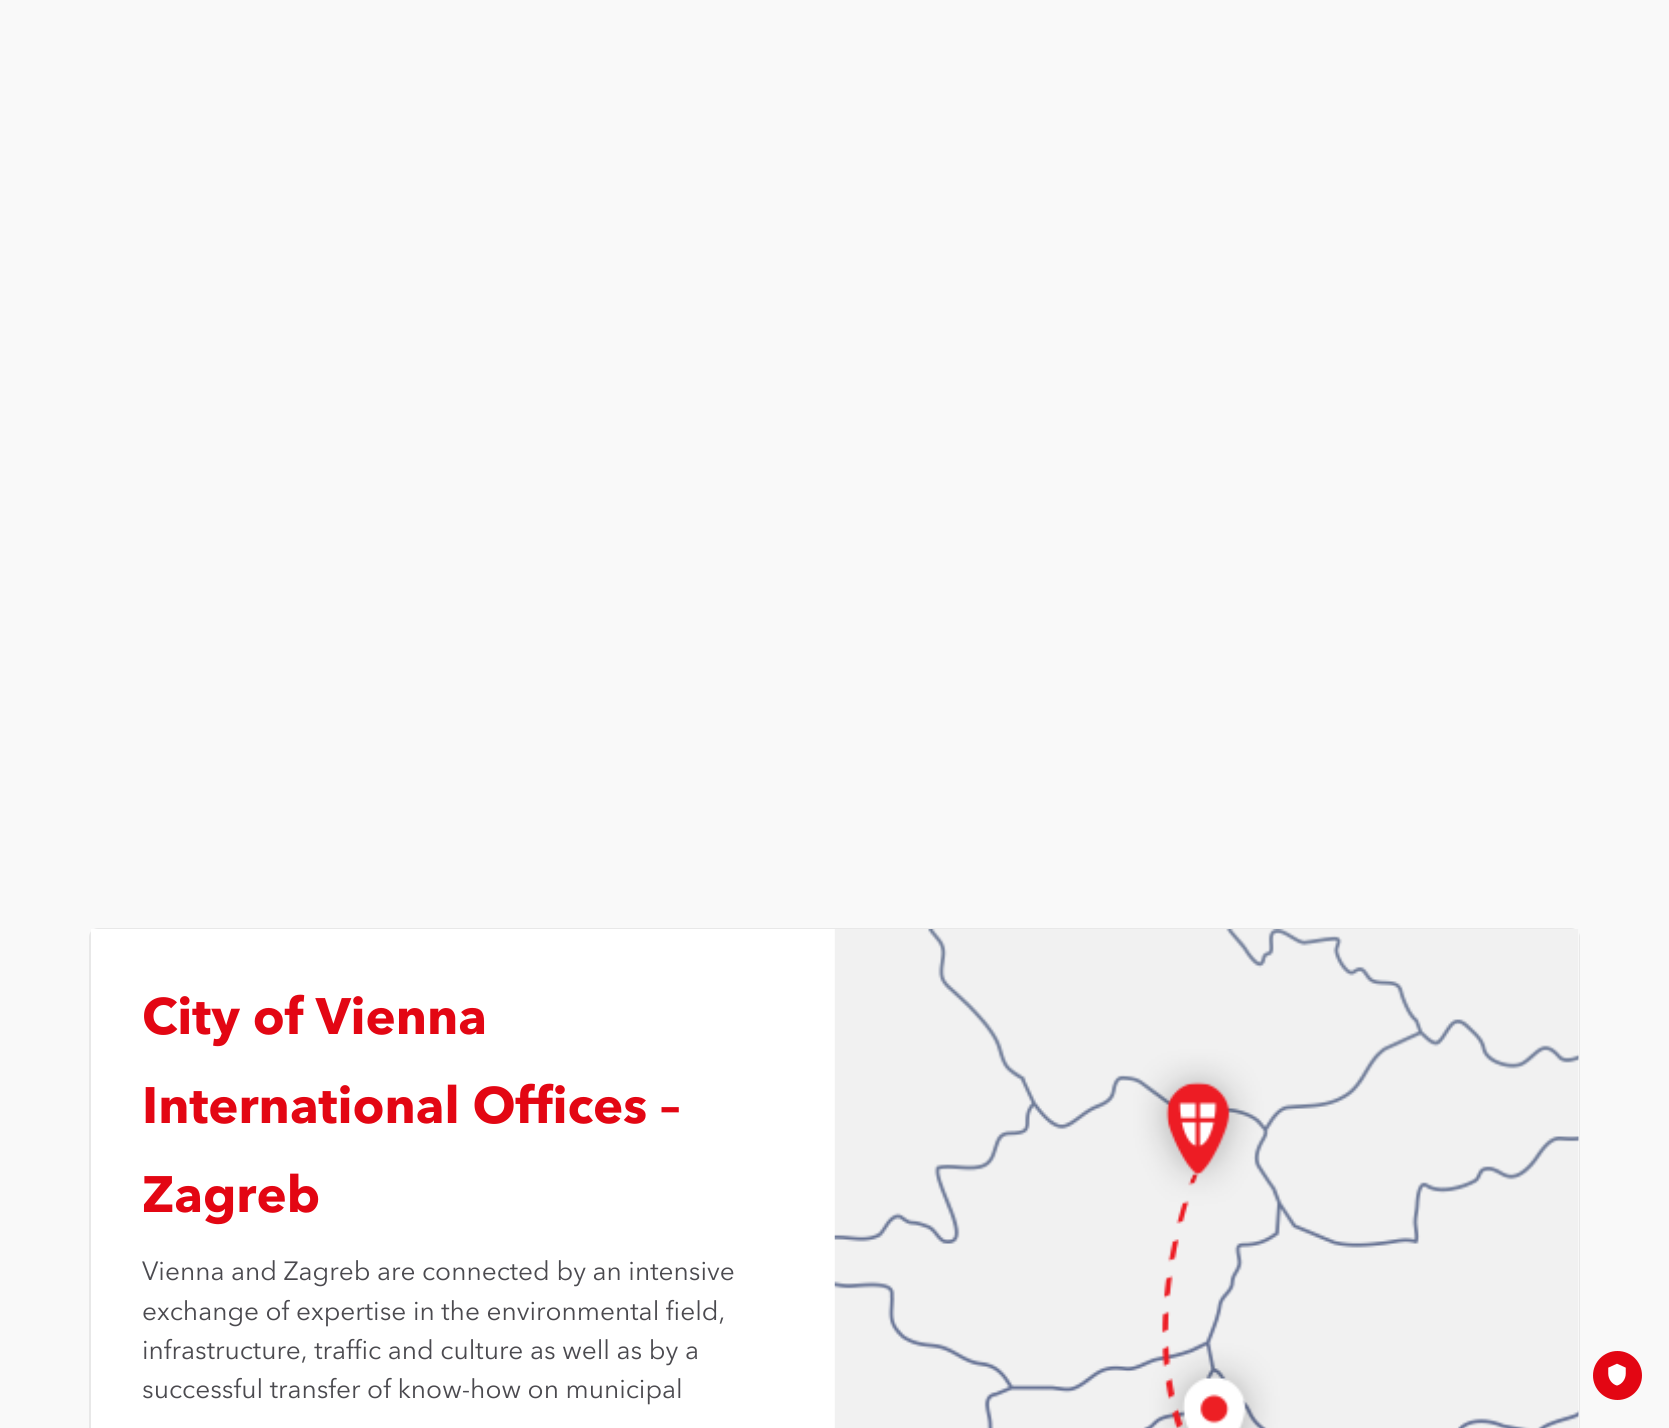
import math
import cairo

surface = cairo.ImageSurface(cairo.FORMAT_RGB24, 1669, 1428)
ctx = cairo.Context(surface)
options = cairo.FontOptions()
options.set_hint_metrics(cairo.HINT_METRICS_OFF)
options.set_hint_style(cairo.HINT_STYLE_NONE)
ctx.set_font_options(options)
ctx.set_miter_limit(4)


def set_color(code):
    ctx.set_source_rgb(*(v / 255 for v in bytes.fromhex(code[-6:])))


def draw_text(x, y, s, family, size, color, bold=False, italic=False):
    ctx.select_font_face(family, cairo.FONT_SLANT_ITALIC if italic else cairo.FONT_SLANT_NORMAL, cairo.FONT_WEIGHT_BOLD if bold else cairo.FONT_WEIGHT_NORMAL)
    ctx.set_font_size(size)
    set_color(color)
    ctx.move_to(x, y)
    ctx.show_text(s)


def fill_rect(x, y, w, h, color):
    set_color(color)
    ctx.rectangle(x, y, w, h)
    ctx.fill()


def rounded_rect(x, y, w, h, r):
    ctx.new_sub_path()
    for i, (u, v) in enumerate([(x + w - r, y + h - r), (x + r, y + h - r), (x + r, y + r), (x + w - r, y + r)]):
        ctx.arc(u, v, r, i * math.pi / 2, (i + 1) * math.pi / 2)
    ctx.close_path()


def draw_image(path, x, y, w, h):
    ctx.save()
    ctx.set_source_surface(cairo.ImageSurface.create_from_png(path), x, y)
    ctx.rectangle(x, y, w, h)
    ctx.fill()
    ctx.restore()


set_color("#f9f9f9")
ctx.paint()
rounded_rect(90, 929, 1489, 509, 8)
set_color("#e8e8e8")
ctx.stroke()
fill_rect(91, 929, 744, 499, "#ffffff")
draw_text(142, 1034, "City of Vienna", "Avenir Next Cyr", 50.75, "#e30613", bold=True)
draw_text(142, 1123, "International Offices –", "Avenir Next Cyr", 50.75, "#e30613", bold=True)
draw_text(142, 1212, "Zagreb", "Avenir Next Cyr", 50.75, "#e30613", bold=True)
draw_text(142, 1280, "Vienna and Zagreb are connected by an intensive", "Avenir Next Cyr", 26.25, "#4b4a4f")
draw_text(142, 1320, "exchange of expertise in the environmental field,", "Avenir Next Cyr", 26.25, "#4b4a4f")
draw_text(142, 1359, "infrastructure, traffic and culture as well as by a", "Avenir Next Cyr", 26.25, "#4b4a4f")
draw_text(142, 1398, "successful transfer of know-how on municipal", "Avenir Next Cyr", 26.25, "#4b4a4f")
fill_rect(1578, 929, 1, 499, "#fffefe")
draw_image("assets/img1.png", 834, 929, 745, 499)
set_color("#e30613")
ctx.arc(1617.5, 1375.5, 24.5, 0, 2 * math.pi)
ctx.fill()
draw_image("assets/img2.png", 1608, 1363, 18, 23)
surface.write_to_png("output.png")
